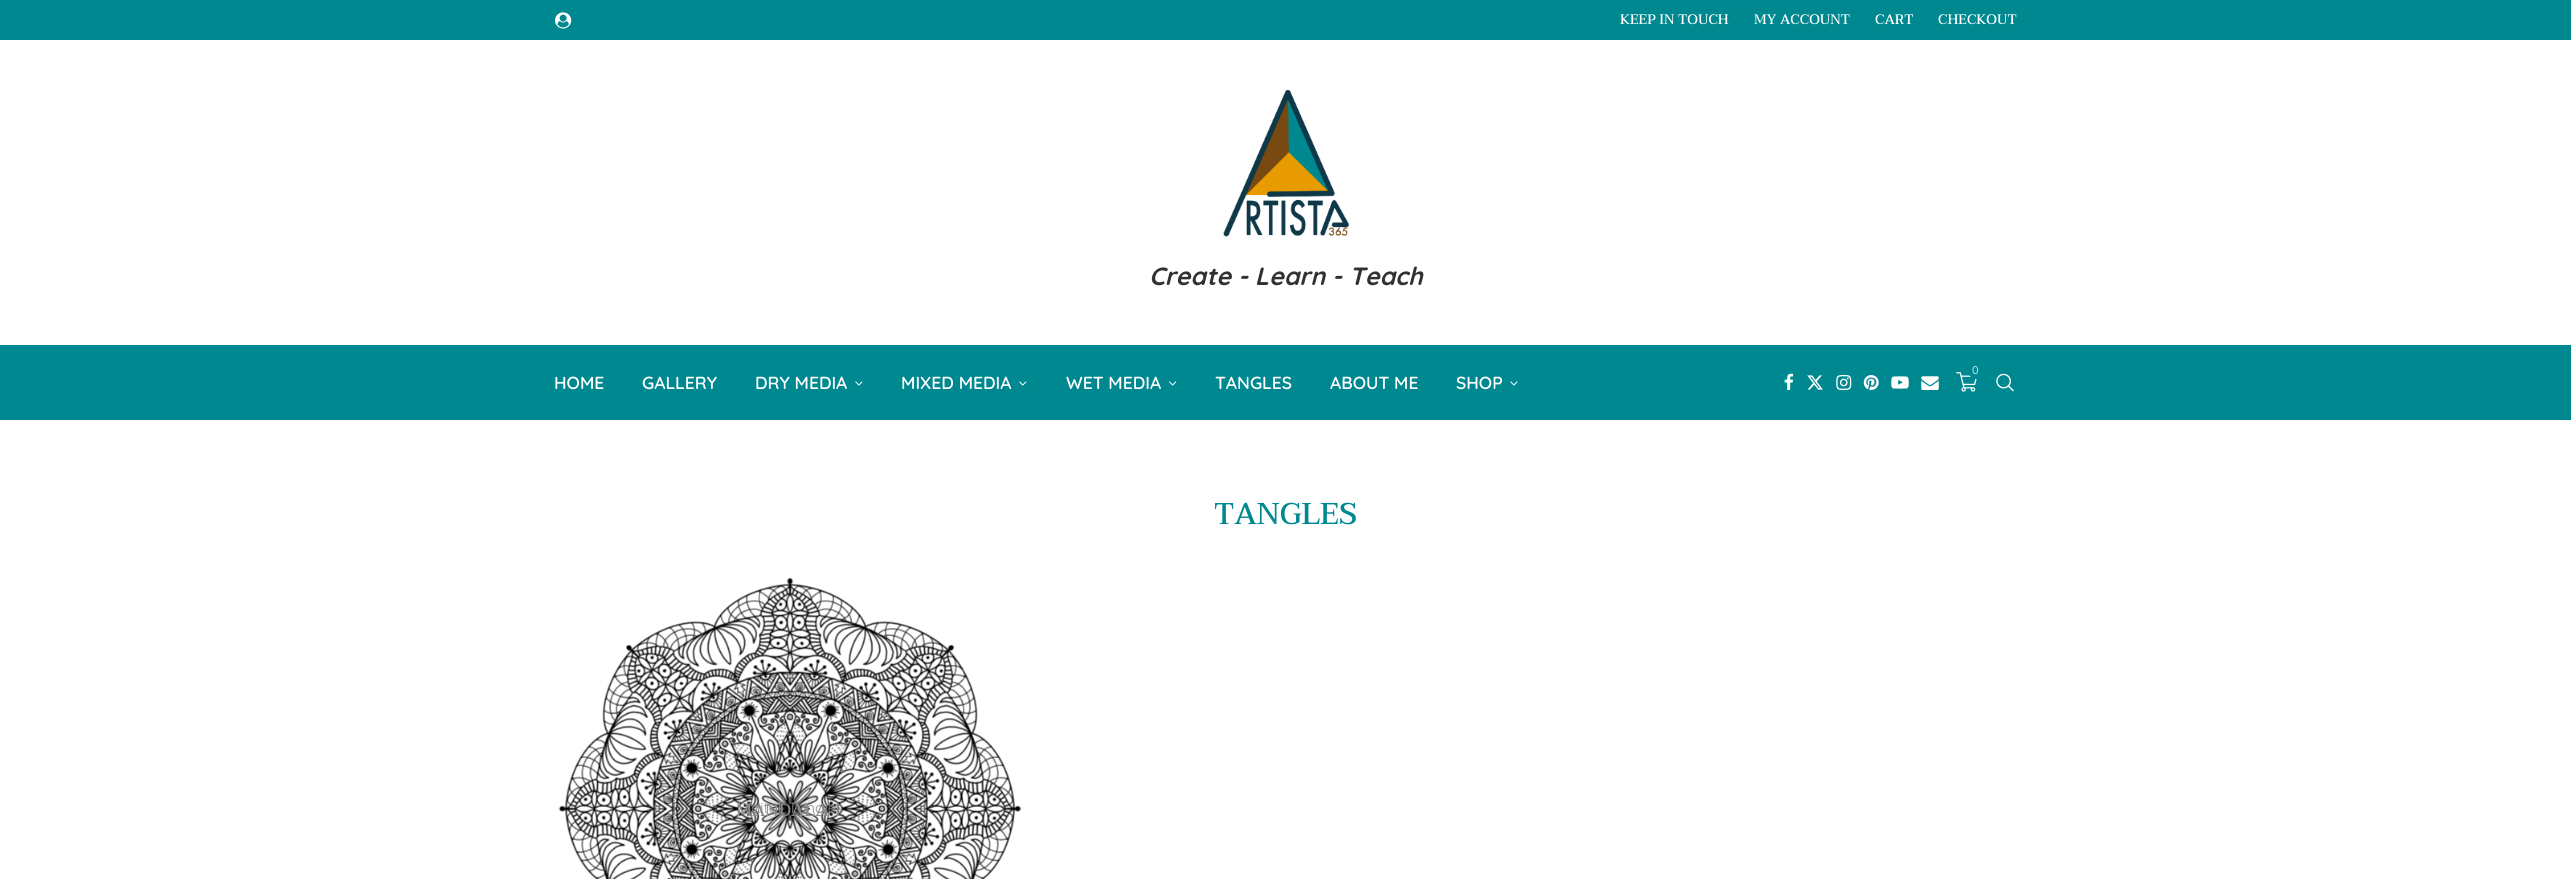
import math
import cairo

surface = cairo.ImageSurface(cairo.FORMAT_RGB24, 2571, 879)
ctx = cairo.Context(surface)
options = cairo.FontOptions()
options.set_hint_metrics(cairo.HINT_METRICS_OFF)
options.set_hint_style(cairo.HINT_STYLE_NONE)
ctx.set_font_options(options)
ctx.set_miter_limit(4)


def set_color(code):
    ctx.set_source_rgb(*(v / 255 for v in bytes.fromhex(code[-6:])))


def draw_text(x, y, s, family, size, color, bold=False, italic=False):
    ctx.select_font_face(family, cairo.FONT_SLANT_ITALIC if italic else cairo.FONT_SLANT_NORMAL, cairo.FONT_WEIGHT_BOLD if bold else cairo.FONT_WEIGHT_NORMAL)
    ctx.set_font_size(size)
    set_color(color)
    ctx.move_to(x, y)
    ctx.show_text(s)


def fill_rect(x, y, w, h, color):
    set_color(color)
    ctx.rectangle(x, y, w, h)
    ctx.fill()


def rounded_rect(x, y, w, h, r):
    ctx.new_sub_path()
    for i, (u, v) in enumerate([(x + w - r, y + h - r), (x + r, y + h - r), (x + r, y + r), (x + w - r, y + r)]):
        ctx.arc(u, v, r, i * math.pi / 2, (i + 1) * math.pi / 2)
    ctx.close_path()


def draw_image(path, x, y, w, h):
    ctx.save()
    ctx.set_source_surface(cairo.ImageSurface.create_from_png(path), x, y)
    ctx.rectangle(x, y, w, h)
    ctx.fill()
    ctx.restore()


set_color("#ffffff")
ctx.paint()
fill_rect(0, 0, 2571, 40, "#008890")
draw_image("assets/img1.png", 555, 12, 17, 17)
draw_text(1620, 24, "KEEP IN TOUCH", "Taviraj Medium", 13.75, "#ffffff")
draw_text(1754, 24, "MY ACCOUNT", "Taviraj Medium", 13.75, "#ffffff")
draw_text(1875, 24, "CART", "Taviraj Medium", 13.75, "#ffffff")
draw_text(1938, 24, "CHECKOUT", "Taviraj Medium", 13.75, "#ffffff")
draw_image("assets/img2.png", 1223, 90, 126, 147)
draw_text(1149, 285, "Create - Learn - Teach", "Quicksand", 25, "#313131", bold=True, italic=True)
fill_rect(0, 345, 2571, 75, "#008890")
draw_image("assets/img3.png", 1956, 372, 21, 20)
rounded_rect(1968, 361, 17, 18, 8.5)
ctx.fill()
draw_text(1972, 374, "0", "Quicksand", 11, "#ffffff")
draw_text(554, 389, "HOME", "Quicksand SemiBold", 17.5, "#ffffff")
draw_text(642, 389, "GALLERY", "Quicksand SemiBold", 17.5, "#ffffff")
draw_text(755, 389, "DRY MEDIA", "Quicksand SemiBold", 17.5, "#ffffff")
draw_image("assets/img4.png", 855, 381, 8, 5)
draw_text(901, 389, "MIXED MEDIA", "Quicksand SemiBold", 17.5, "#ffffff")
draw_image("assets/img5.png", 1019, 381, 8, 5)
draw_text(1066, 389, "WET MEDIA", "Quicksand SemiBold", 17.5, "#ffffff")
draw_image("assets/img6.png", 1169, 381, 8, 5)
draw_text(1215, 389, "TANGLES", "Quicksand SemiBold", 17.5, "#ffffff")
draw_text(1330, 389, "ABOUT ME", "Quicksand SemiBold", 17.5, "#ffffff")
draw_text(1456, 389, "SHOP", "Quicksand SemiBold", 17.5, "#ffffff")
draw_image("assets/img7.png", 1510, 381, 8, 5)
draw_image("assets/img8.png", 1784, 373, 10, 17)
draw_image("assets/img9.png", 1807, 375, 16, 15)
draw_image("assets/img10.png", 1836, 375, 16, 15)
draw_image("assets/img11.png", 1863, 375, 16, 15)
draw_image("assets/img12.png", 1891, 376, 18, 13)
draw_image("assets/img13.png", 1921, 376, 18, 14)
draw_image("assets/img14.png", 1996, 373, 18, 19)
draw_text(1214, 524, "TANGLES", "Taviraj Medium", 30, "#008890")
draw_image("assets/img15.png", 558, 577, 464, 302)
draw_text(736, 816, "MANDALA 1", "Taviraj Medium", 17.5, "#8a8a8a")
draw_text(737, 813, "Digital, Tangles", "Quicksand", 15, "#8a8a8a")
surface.write_to_png("output.png")
